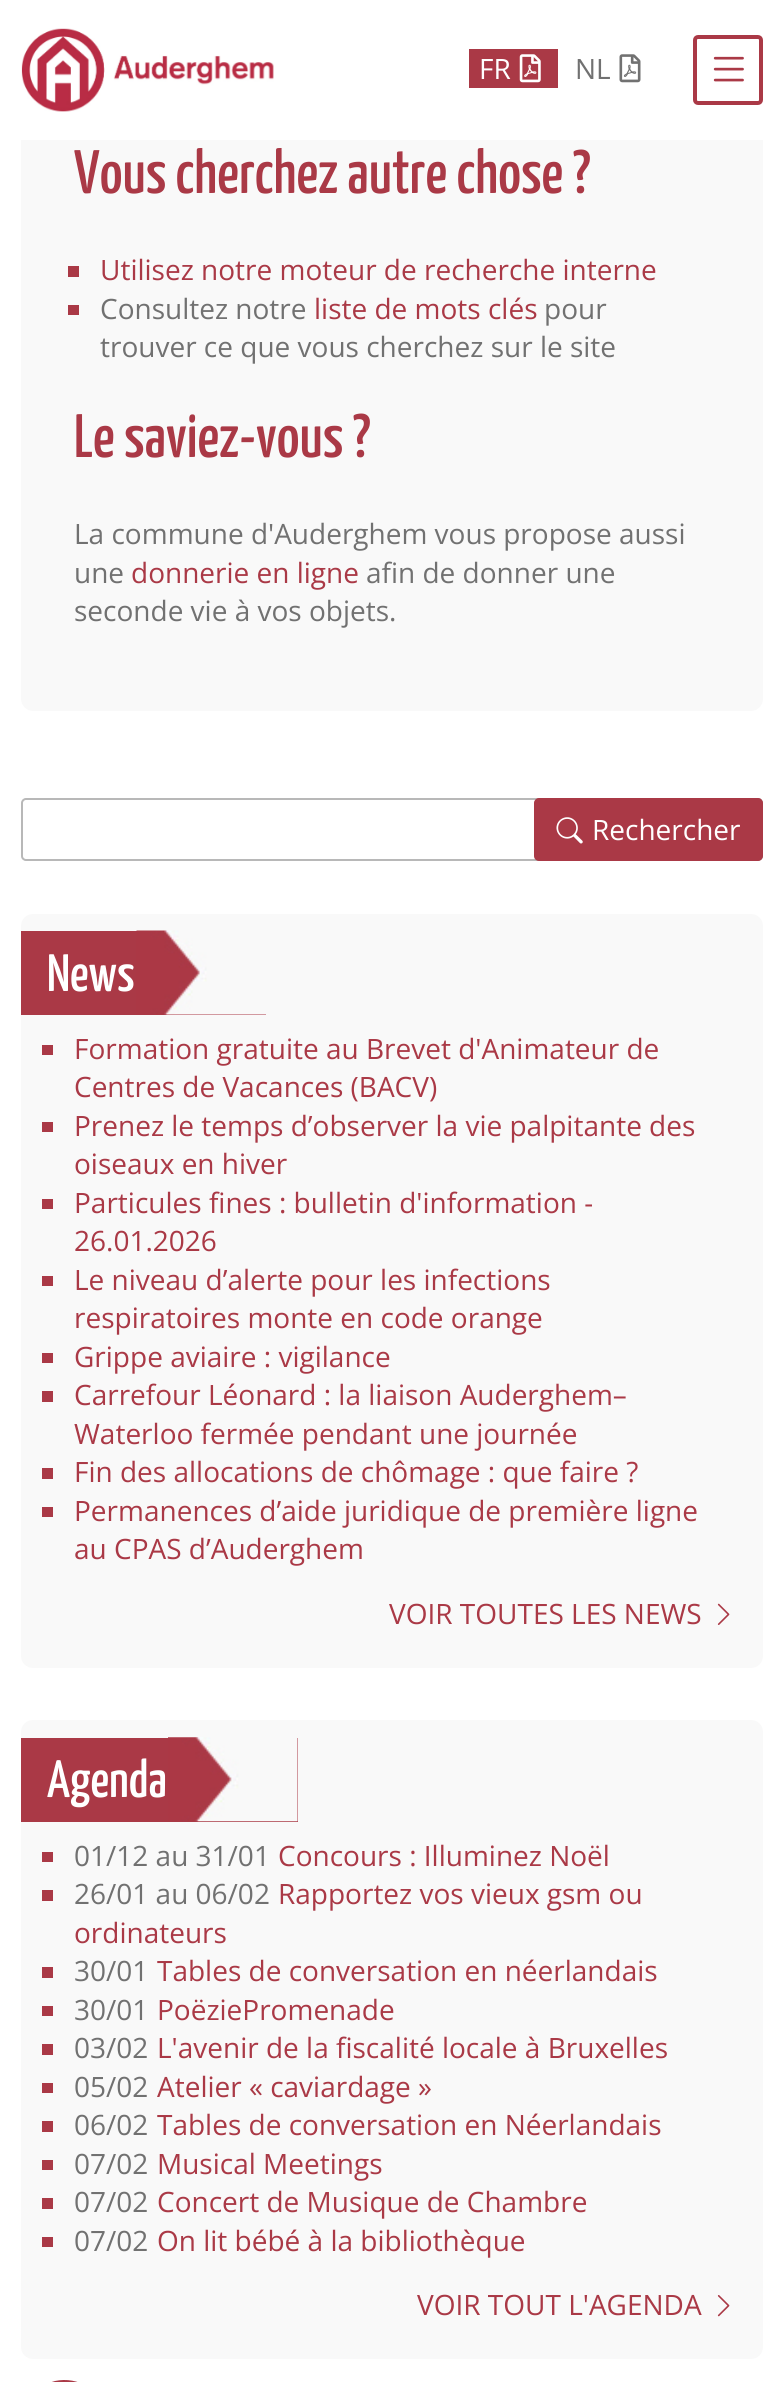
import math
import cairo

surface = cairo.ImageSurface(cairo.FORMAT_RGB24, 783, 2382)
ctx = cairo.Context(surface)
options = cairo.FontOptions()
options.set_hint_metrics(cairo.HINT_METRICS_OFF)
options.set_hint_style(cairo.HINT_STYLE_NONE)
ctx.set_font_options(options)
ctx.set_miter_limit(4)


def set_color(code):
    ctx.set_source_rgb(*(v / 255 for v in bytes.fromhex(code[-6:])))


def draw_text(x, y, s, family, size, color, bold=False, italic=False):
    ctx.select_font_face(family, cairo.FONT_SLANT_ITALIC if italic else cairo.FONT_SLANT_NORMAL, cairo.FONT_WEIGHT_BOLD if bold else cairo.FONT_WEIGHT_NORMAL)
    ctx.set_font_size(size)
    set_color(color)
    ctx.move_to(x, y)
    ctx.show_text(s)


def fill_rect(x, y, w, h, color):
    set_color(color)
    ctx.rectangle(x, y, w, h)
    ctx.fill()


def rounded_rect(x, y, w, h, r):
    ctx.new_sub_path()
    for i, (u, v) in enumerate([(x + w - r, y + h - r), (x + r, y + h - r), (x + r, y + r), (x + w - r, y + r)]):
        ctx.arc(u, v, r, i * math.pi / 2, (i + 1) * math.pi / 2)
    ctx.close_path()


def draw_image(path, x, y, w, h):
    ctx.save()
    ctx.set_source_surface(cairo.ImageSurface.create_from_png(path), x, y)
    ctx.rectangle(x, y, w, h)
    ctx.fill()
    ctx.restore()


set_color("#ffffff")
ctx.paint()
set_color("#f9f9f9")
ctx.new_path()
ctx.move_to(21, -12)
ctx.line_to(763, -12)
ctx.line_to(763, 699)
ctx.curve_to(763, 705.5, 757.5, 711, 751, 711)
ctx.line_to(33, 711)
ctx.curve_to(26.5, 711, 21, 705.5, 21, 699)
ctx.close_path()
ctx.fill()
fill_rect(21, 0, 742, 140, "#ffffff")
draw_image("assets/img1.png", 21, 28, 253, 84)
fill_rect(469, 49, 89, 39, "#aa3946")
draw_text(479, 79, "FR", "Open Sans", 28, "#ffffff")
draw_image("assets/img2.png", 519, 54, 22, 29)
draw_text(575, 79, "NL", "Open Sans", 28, "#717171")
draw_image("assets/img3.png", 619, 54, 22, 29)
rounded_rect(695, 37, 66, 66, 3)
set_color("#aa3946")
ctx.set_line_width(4)
ctx.stroke()
draw_image("assets/img4.png", 713, 56, 31, 26)
draw_text(74, 193, "Vous cherchez autre chose ?", "Yanone Kaffeesatz Medium", 61.25, "#aa3946")
fill_rect(68, 266, 11, 11, "#aa3946")
draw_text(100, 280, "Utilisez notre moteur de recherche interne", "Open Sans", 28, "#aa3946")
fill_rect(68, 305, 11, 10, "#aa3946")
draw_text(100, 319, "Consultez notre", "Open Sans", 28, "#717171")
draw_text(314, 319, "liste de mots clés", "Open Sans", 28, "#aa3946")
draw_text(544, 319, "pour", "Open Sans", 28, "#717171")
draw_text(100, 357, "trouver ce que vous cherchez sur le site", "Open Sans", 28, "#717171")
draw_text(74, 457, "Le saviez-vous ?", "Yanone Kaffeesatz Medium", 61.25, "#aa3946")
draw_text(74, 544, "La commune d'Auderghem vous propose aussi", "Open Sans", 28, "#717171")
draw_text(74, 583, "une", "Open Sans", 28, "#717171")
draw_text(131, 583, "donnerie en ligne", "Open Sans", 28, "#aa3946")
draw_text(366, 583, "afin de donner une", "Open Sans", 28, "#717171")
draw_text(74, 621, "seconde vie à vos objets.", "Open Sans", 28, "#717171")
rounded_rect(22, 799, 740, 61, 4)
set_color("#b8b8b8")
ctx.set_line_width(2)
ctx.stroke()
set_color("#aa3946")
rounded_rect(535, 799, 227, 61, 4)
ctx.fill_preserve()
ctx.stroke()
draw_image("assets/img5.png", 556, 817, 27, 27)
draw_text(592, 840, "Rechercher", "Open Sans", 28, "#ffffff")
set_color("#f9f9f9")
rounded_rect(21, 914, 742, 754, 12)
ctx.fill()
fill_rect(21, 931, 245, 84, "#aa3946")
draw_image("assets/img6.png", 136, 930, 130, 85)
draw_text(47, 991, "News", "Yanone Kaffeesatz Medium", 52.5, "#ffffff")
fill_rect(42, 1045, 11, 10, "#aa3946")
draw_text(74, 1059, "Formation gratuite au Brevet d'Animateur de", "Open Sans", 28, "#aa3946")
draw_text(74, 1097, "Centres de Vacances (BACV)", "Open Sans", 28, "#aa3946")
fill_rect(42, 1122, 11, 10, "#aa3946")
draw_text(74, 1136, "Prenez le temps d’observer la vie palpitante des", "Open Sans", 28, "#aa3946")
draw_text(74, 1174, "oiseaux en hiver", "Open Sans", 28, "#aa3946")
fill_rect(42, 1199, 11, 10, "#aa3946")
draw_text(74, 1213, "Particules fines : bulletin d'information -", "Open Sans", 28, "#aa3946")
draw_text(74, 1251, "26.01.2026", "Open Sans", 28, "#aa3946")
fill_rect(42, 1276, 11, 10, "#aa3946")
draw_text(74, 1290, "Le niveau d’alerte pour les infections", "Open Sans", 28, "#aa3946")
draw_text(74, 1328, "respiratoires monte en code orange", "Open Sans", 28, "#aa3946")
fill_rect(42, 1353, 11, 10, "#aa3946")
draw_text(74, 1367, "Grippe aviaire : vigilance", "Open Sans", 28, "#aa3946")
fill_rect(42, 1391, 11, 11, "#aa3946")
draw_text(74, 1405, "Carrefour Léonard : la liaison Auderghem–", "Open Sans", 28, "#aa3946")
draw_text(74, 1444, "Waterloo fermée pendant une journée", "Open Sans", 28, "#aa3946")
fill_rect(42, 1468, 11, 11, "#aa3946")
draw_text(74, 1482, "Fin des allocations de chômage : que faire ?", "Open Sans", 28, "#aa3946")
fill_rect(42, 1507, 11, 10, "#aa3946")
draw_text(74, 1521, "Permanences d’aide juridique de première ligne", "Open Sans", 28, "#aa3946")
draw_text(74, 1559, "au CPAS d’Auderghem", "Open Sans", 28, "#aa3946")
draw_text(389, 1624, "VOIR TOUTES LES NEWS", "Open Sans", 28, "#aa3946")
draw_image("assets/img7.png", 717, 1603, 13, 22)
set_color("#f9f9f9")
rounded_rect(21, 1720, 742, 639, 12)
ctx.fill()
fill_rect(21, 1738, 277, 84, "#aa3946")
draw_image("assets/img8.png", 168, 1737, 130, 85)
draw_text(47, 1797, "Agenda", "Yanone Kaffeesatz Medium", 52.5, "#ffffff")
fill_rect(42, 1852, 11, 10, "#aa3946")
draw_text(74, 1866, "01/12 au 31/01", "Open Sans", 28, "#717171")
draw_text(278, 1866, "Concours : Illuminez Noël", "Open Sans", 28, "#aa3946")
fill_rect(42, 1890, 11, 11, "#aa3946")
draw_text(74, 1904, "26/01 au 06/02", "Open Sans", 28, "#717171")
draw_text(278, 1904, "Rapportez vos vieux gsm ou", "Open Sans", 28, "#aa3946")
draw_text(74, 1943, "ordinateurs", "Open Sans", 28, "#aa3946")
fill_rect(42, 1967, 11, 11, "#aa3946")
draw_text(74, 1981, "30/01", "Open Sans", 28, "#717171")
draw_text(157, 1981, "Tables de conversation en néerlandais", "Open Sans", 28, "#aa3946")
fill_rect(42, 2006, 11, 10, "#aa3946")
draw_text(74, 2020, "30/01", "Open Sans", 28, "#717171")
draw_text(157, 2020, "PoëziePromenade", "Open Sans", 28, "#aa3946")
fill_rect(42, 2044, 11, 11, "#aa3946")
draw_text(74, 2058, "03/02", "Open Sans", 28, "#717171")
draw_text(157, 2058, "L'avenir de la fiscalité locale à Bruxelles", "Open Sans", 28, "#aa3946")
fill_rect(42, 2083, 11, 10, "#aa3946")
draw_text(74, 2097, "05/02", "Open Sans", 28, "#717171")
draw_text(157, 2097, "Atelier « caviardage »", "Open Sans", 28, "#aa3946")
fill_rect(42, 2121, 11, 11, "#aa3946")
draw_text(74, 2135, "06/02", "Open Sans", 28, "#717171")
draw_text(157, 2135, "Tables de conversation en Néerlandais", "Open Sans", 28, "#aa3946")
fill_rect(42, 2160, 11, 10, "#aa3946")
draw_text(74, 2174, "07/02", "Open Sans", 28, "#717171")
draw_text(157, 2174, "Musical Meetings", "Open Sans", 28, "#aa3946")
fill_rect(42, 2198, 11, 11, "#aa3946")
draw_text(74, 2212, "07/02", "Open Sans", 28, "#717171")
draw_text(157, 2212, "Concert de Musique de Chambre", "Open Sans", 28, "#aa3946")
fill_rect(42, 2237, 11, 10, "#aa3946")
draw_text(74, 2251, "07/02", "Open Sans", 28, "#717171")
draw_text(157, 2251, "On lit bébé à la bibliothèque", "Open Sans", 28, "#aa3946")
draw_text(417, 2315, "VOIR TOUT L'AGENDA", "Open Sans", 28, "#aa3946")
draw_image("assets/img9.png", 717, 2295, 13, 22)
ctx.new_path()
ctx.move_to(55, 2381)
ctx.curve_to(78, 2376, 102, 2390, 107, 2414)
ctx.curve_to(113, 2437, 98, 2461, 75, 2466)
ctx.curve_to(51, 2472, 28, 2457, 22, 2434)
ctx.curve_to(17, 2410, 31, 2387, 55, 2381)
ctx.close_path()
ctx.fill()
surface.write_to_png("output.png")
